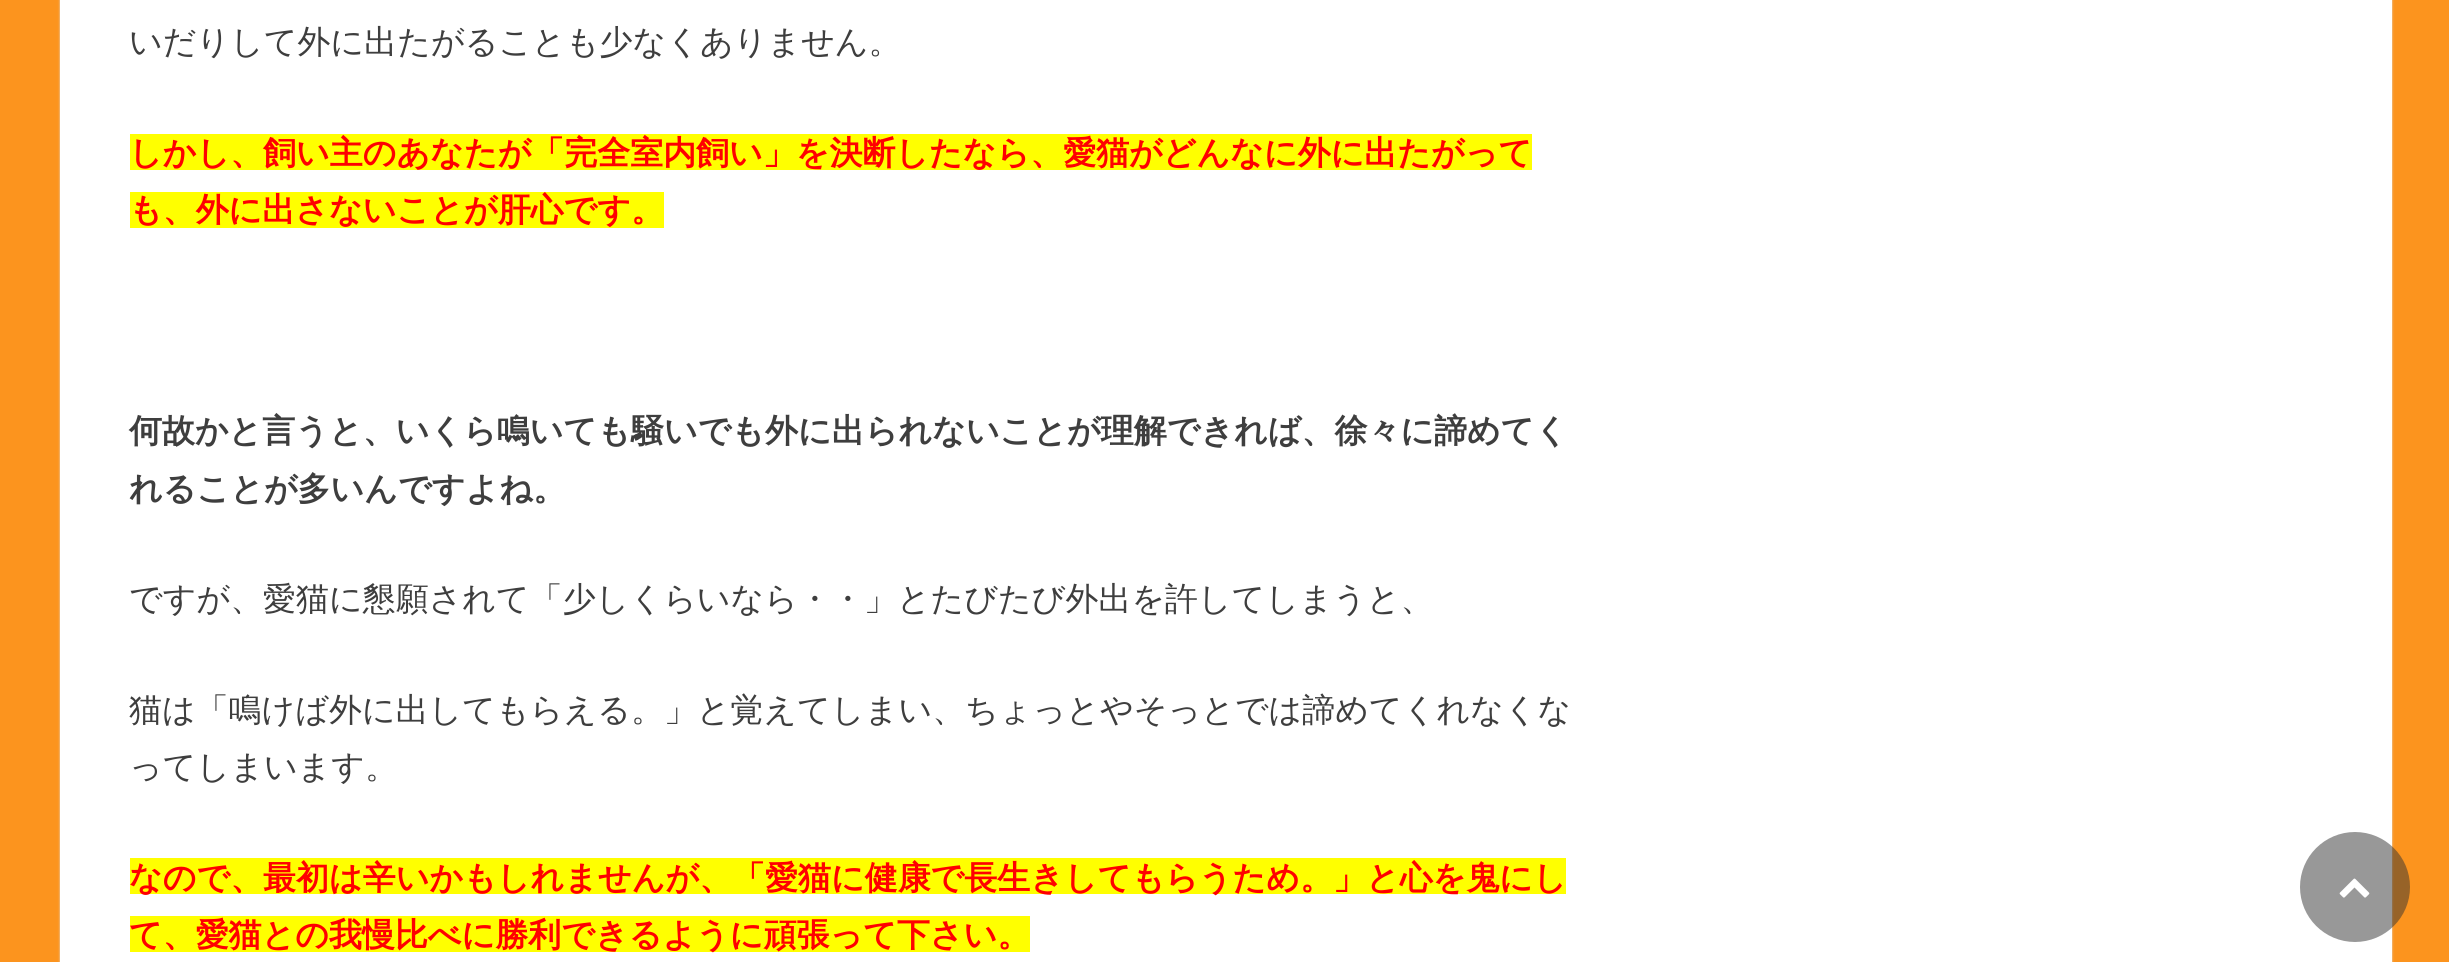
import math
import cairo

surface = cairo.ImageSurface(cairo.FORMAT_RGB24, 2449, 962)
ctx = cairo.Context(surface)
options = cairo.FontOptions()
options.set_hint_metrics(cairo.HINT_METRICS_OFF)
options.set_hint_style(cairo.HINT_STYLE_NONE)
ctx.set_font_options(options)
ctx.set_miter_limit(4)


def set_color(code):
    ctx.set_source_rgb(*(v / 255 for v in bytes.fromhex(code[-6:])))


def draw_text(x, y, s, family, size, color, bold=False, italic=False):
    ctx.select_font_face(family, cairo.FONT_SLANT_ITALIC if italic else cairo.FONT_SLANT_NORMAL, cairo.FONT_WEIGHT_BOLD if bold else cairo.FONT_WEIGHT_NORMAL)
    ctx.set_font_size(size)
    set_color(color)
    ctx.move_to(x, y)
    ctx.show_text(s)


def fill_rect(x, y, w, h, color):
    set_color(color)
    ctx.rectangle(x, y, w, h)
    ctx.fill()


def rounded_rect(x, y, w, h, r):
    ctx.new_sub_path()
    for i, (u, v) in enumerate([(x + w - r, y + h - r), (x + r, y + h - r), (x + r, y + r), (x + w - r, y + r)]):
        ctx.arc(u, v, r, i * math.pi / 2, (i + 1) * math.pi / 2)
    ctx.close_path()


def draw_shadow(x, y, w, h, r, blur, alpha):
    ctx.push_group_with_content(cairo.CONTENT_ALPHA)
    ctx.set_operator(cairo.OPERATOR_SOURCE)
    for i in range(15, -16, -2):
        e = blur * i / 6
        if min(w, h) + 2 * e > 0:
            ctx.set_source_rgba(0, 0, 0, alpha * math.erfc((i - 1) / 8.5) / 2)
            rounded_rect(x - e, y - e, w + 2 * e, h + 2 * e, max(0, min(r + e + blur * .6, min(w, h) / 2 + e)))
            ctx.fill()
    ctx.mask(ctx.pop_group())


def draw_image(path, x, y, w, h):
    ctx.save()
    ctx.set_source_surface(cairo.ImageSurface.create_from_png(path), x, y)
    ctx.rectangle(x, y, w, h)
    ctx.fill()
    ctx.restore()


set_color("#fc941e")
ctx.paint()
set_color("#dddddd")
draw_shadow(60, -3, 2332, 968, 0, 1, 1)
fill_rect(60, 0, 2332, 962, "#ffffff")
draw_text(129, 53, "いだりして外に出たがることも少なくありません。", "WenQuanYi Zen Hei Medium", 32.95, "#3e3e3e")
fill_rect(130, 134, 1402, 36, "#ffff00")
draw_text(129, 164, "しかし、飼い主のあなたが「完全室内飼い」を決断したなら、愛猫がどんなに外に出たがって", "WenQuanYi Zen Hei", 32.95, "#ff0000", bold=True)
fill_rect(130, 192, 534, 36, "#ffff00")
draw_text(129, 221, "も、外に出さないことが肝心です。", "WenQuanYi Zen Hei", 32.95, "#ff0000", bold=True)
draw_text(129, 442, "何故かと言うと、いくら鳴いても騒いでも外に出られないことが理解できれば、徐々に諦めてく", "WenQuanYi Zen Hei", 32.95, "#3e3e3e", bold=True)
draw_text(129, 500, "れることが多いんですよね。", "WenQuanYi Zen Hei", 32.95, "#3e3e3e", bold=True)
draw_text(129, 610, "ですが、愛猫に懇願されて「少しくらいなら・・」とたびたび外出を許してしまうと、", "WenQuanYi Zen Hei Medium", 32.95, "#3e3e3e")
draw_text(129, 721, "猫は「鳴けば外に出してもらえる。」と覚えてしまい、ちょっとやそっとでは諦めてくれなくな", "WenQuanYi Zen Hei Medium", 32.95, "#3e3e3e")
draw_text(129, 778, "ってしまいます。", "WenQuanYi Zen Hei Medium", 32.95, "#3e3e3e")
fill_rect(130, 858, 1436, 36, "#ffff00")
draw_text(129, 889, "なので、最初は辛いかもしれませんが、「愛猫に健康で長生きしてもらうため。」と心を鬼にし", "WenQuanYi Zen Hei", 32.95, "#ff0000", bold=True)
fill_rect(130, 916, 900, 36, "#ffff00")
draw_text(129, 946, "て、愛猫との我慢比べに勝利できるように頑張って下さい。", "WenQuanYi Zen Hei", 32.95, "#ff0000", bold=True)
ctx.set_source_rgba(0.2, 0.2, 0.2, 0.5)
ctx.new_path()
ctx.arc(2355, 887, 55, 0, 2 * math.pi)
ctx.fill()
draw_image("assets/img1.png", 2339, 878, 31, 20)
surface.write_to_png("output.png")
